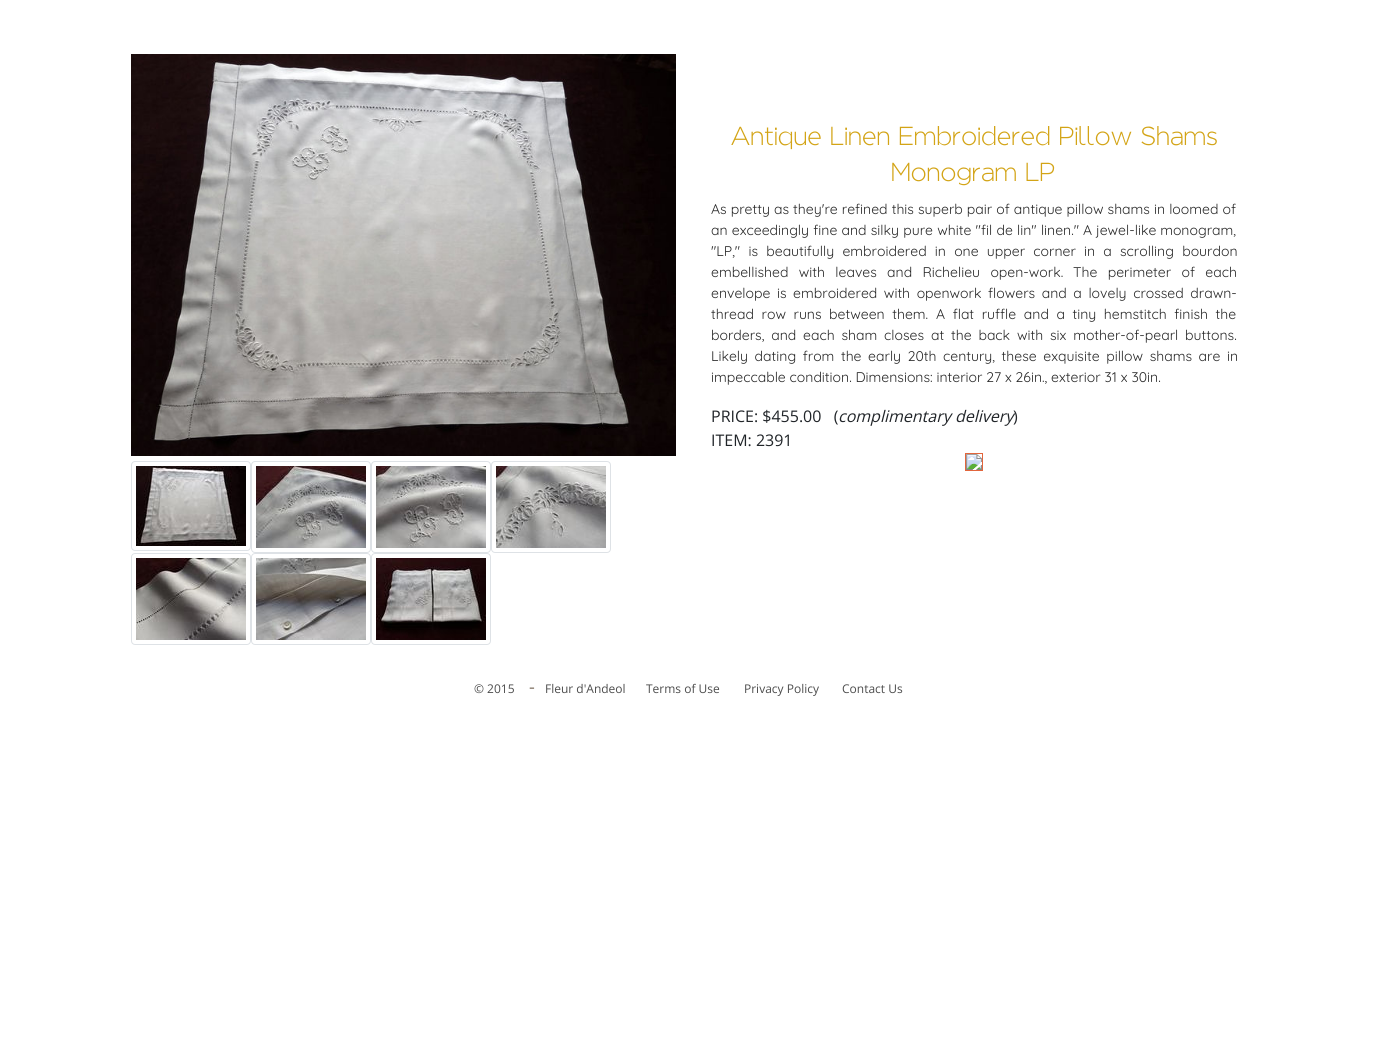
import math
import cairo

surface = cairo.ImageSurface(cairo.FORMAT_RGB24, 1377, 1060)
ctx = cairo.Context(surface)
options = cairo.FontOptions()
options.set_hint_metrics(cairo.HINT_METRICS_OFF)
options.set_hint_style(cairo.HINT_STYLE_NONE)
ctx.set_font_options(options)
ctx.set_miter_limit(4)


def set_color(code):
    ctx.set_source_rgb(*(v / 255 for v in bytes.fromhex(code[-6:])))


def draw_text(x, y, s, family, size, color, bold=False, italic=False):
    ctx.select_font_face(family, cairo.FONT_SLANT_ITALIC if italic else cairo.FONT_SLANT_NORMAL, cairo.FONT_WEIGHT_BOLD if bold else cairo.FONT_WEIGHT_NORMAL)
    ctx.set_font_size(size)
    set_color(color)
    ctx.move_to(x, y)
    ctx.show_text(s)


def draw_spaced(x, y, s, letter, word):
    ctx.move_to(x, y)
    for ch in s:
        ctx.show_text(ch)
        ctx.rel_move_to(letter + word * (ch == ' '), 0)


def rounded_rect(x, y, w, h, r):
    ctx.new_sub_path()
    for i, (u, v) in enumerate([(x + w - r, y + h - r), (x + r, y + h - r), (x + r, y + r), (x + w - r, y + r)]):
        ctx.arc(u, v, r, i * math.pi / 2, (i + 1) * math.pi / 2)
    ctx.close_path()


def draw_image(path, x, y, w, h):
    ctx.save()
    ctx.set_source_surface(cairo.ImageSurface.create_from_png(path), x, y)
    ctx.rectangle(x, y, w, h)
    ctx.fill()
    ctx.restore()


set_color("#ffffff")
ctx.paint()
draw_image("assets/img1.png", 131, 54, 545, 402)
rounded_rect(131.5, 461.5, 119, 89, 3.5)
set_color("#dee2e6")
ctx.set_line_width(1)
ctx.stroke()
draw_image("assets/img2.png", 136, 466, 110, 80)
rounded_rect(251.5, 461.5, 119, 91, 3.5)
ctx.stroke()
draw_image("assets/img3.png", 256, 466, 110, 82)
rounded_rect(371.5, 461.5, 119, 91, 3.5)
ctx.stroke()
draw_image("assets/img4.png", 376, 466, 110, 82)
rounded_rect(491.5, 461.5, 119, 91, 3.5)
ctx.stroke()
draw_image("assets/img5.png", 496, 466, 110, 82)
rounded_rect(131.5, 553.5, 119, 91, 3.5)
ctx.stroke()
draw_image("assets/img6.png", 136, 558, 110, 82)
rounded_rect(251.5, 553.5, 119, 91, 3.5)
ctx.stroke()
draw_image("assets/img7.png", 256, 558, 110, 82)
rounded_rect(371.5, 553.5, 119, 91, 3.5)
ctx.stroke()
draw_image("assets/img8.png", 376, 558, 110, 82)
draw_text(730, 145, "Antique Linen Embroidered Pillow Shams", "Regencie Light", 26, "#d3a416")
draw_text(891, 181, "Monogram LP", "Regencie Light", 26, "#d3a416")
ctx.select_font_face("Quicksand")
ctx.set_font_size(14)
set_color("#282828")
draw_spaced(711, 214, "As pretty as they're refined this superb pair of antique pillow shams in loomed of", 0, 0.25)
draw_spaced(711, 235, "an exceedingly fine and silky pure white \"fil de lin\" linen.\"", 0, 0.4)
draw_text(1083, 235, "A jewel-like monogram,", "Quicksand", 14, "#282828")
draw_spaced(711, 256, "\"LP,\" is beautifully embroidered in one upper corner in a scrolling bourdon", 0, 4.4)
draw_spaced(711, 277, "embellished with leaves and Richelieu open-work.", 0, 6.5)
draw_spaced(1073, 277, "The perimeter of each", 0, 6.5)
draw_spaced(711, 298, "envelope is embroidered with openwork flowers and a lovely crossed drawn-", 0, 2.75)
draw_spaced(711, 319, "thread row runs between them.", 0, 3.75)
draw_spaced(936, 319, "A flat ruffle and a tiny hemstitch finish the", 0, 3.75)
draw_spaced(711, 340, "borders, and each sham closes at the back with six mother-of-pearl buttons.", 0, 3)
draw_spaced(711, 361, "Likely dating from the early 20th century, these exquisite pillow shams are in", 0, 2.75)
draw_text(711, 382, "impeccable condition. Dimensions: interior 27 x 26in., exterior 31 x 30in.", "Quicksand", 14, "#282828")
draw_text(711, 422, "PRICE: $455.00   (", "Open Sans", 16, "#212529")
draw_text(838, 422, "complimentary delivery", "Open Sans", 16, "#212529", italic=True)
draw_text(1013, 422, ")", "Open Sans", 16, "#212529")
draw_text(711, 446, "ITEM: 2391", "Open Sans", 16, "#212529")
ctx.rectangle(965.5, 453.5, 17, 17)
set_color("#e2653c")
ctx.stroke()
draw_image("assets/img9.png", 966, 454, 16, 16)
draw_text(474, 693, "© 2015", "Open Sans", 12, "#4d4d4d")
draw_text(529, 693, "-", "Open Sans", 18, "#827364")
draw_text(545, 693, "Fleur d'Andeol", "Open Sans", 12, "#4d4d4d")
draw_text(646, 693, "Terms of Use", "Open Sans", 12, "#4d4d4d")
draw_text(744, 693, "Privacy Policy", "Open Sans", 12, "#4d4d4d")
draw_text(842, 693, "Contact Us", "Open Sans", 12, "#4d4d4d")
surface.write_to_png("output.png")
